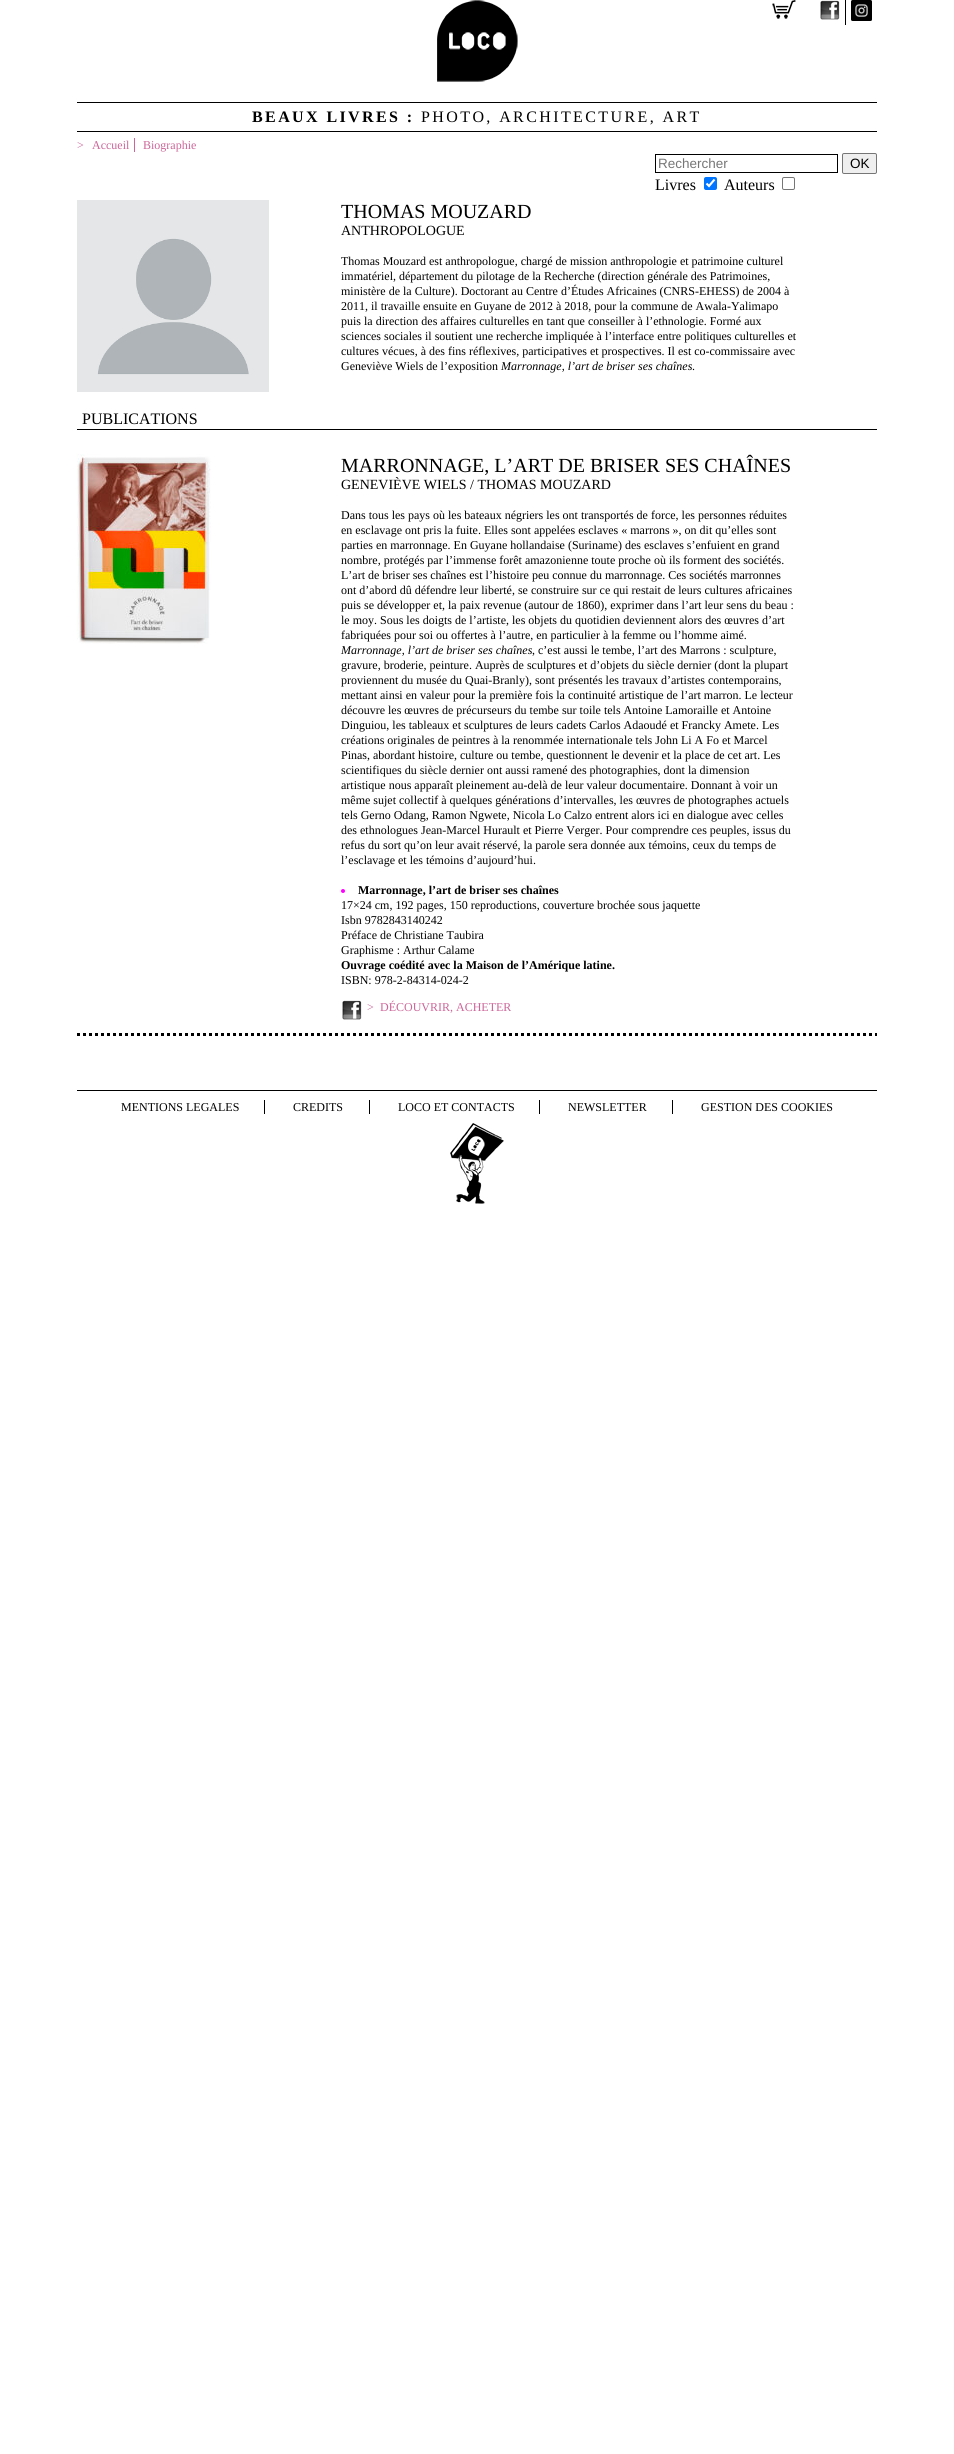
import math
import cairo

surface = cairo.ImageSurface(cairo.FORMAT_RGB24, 954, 2454)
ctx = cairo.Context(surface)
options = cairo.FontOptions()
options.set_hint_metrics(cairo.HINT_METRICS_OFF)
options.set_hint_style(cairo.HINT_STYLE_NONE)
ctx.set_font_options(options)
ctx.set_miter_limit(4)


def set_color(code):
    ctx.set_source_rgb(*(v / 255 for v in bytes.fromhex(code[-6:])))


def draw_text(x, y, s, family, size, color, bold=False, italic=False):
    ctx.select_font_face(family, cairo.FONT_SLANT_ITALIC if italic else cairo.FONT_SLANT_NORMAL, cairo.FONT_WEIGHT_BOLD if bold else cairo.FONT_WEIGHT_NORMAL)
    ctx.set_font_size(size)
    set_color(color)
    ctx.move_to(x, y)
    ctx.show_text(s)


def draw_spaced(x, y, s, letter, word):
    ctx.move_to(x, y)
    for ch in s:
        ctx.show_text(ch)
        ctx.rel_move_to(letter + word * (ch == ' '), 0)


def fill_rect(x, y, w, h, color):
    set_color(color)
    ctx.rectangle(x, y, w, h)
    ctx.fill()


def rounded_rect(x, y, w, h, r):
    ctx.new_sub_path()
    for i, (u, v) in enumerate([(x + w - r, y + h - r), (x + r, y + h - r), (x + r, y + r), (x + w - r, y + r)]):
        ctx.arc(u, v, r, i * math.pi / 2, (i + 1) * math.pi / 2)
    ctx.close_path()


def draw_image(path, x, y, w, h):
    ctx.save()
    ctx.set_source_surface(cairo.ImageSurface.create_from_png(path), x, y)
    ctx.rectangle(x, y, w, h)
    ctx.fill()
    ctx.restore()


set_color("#ffffff")
ctx.paint()
draw_image("assets/img1.png", 437, 0, 81, 82)
draw_image("assets/img2.png", 772, 0, 24, 19)
fill_rect(845, 0, 1, 25, "#000000")
draw_image("assets/img3.png", 820, 0, 20, 20)
draw_image("assets/img4.png", 851, 0, 21, 21)
fill_rect(77, 102, 800, 1, "#000000")
fill_rect(77, 131, 800, 1, "#000000")
ctx.select_font_face("Liberation Serif", cairo.FONT_SLANT_NORMAL, cairo.FONT_WEIGHT_BOLD)
ctx.set_font_size(16)
draw_spaced(252, 122, "BEAUX LIVRES :", 2.4, 0)
ctx.select_font_face("Liberation Serif")
draw_spaced(421, 122, "PHOTO, ARCHITECTURE, ART", 2.4, 0)
draw_text(77, 149, ">", "Liberation Serif", 12, "#cc6699")
draw_text(92, 149, "Accueil", "Liberation Serif", 12, "#cc6699")
fill_rect(134, 138, 1, 14, "#cc6699")
draw_text(143, 149, "Biographie", "Liberation Serif", 12, "#cc6699")
ctx.rectangle(655.5, 154.5, 182, 18)
set_color("#000000")
ctx.set_line_width(1)
ctx.stroke()
draw_text(658, 168, "Rechercher", "Liberation Sans", 13.5, "#757575")
set_color("#efefef")
rounded_rect(842.5, 153.5, 34, 20, 1.5)
ctx.fill_preserve()
set_color("#767676")
ctx.stroke()
draw_text(850, 168, "OK", "Liberation Sans", 13.5, "#000000")
draw_text(655, 190, "Livres", "Liberation Serif", 16, "#000000")
set_color("#0075ff")
rounded_rect(704, 177, 13, 13, 2)
ctx.fill()
ctx.new_path()
ctx.move_to(706.5, 183.5)
ctx.line_to(709, 186)
ctx.line_to(714.5, 179.5)
set_color("#ffffff")
ctx.set_line_width(2.1)
ctx.stroke()
draw_text(724, 190, "Auteurs", "Liberation Serif", 16, "#000000")
rounded_rect(782.5, 177.5, 12, 12, 1.5)
set_color("#767676")
ctx.set_line_width(1)
ctx.stroke()
draw_image("assets/img5.png", 77, 200, 192, 192)
draw_text(341, 218, "THOMAS MOUZARD", "Liberation Serif", 20, "#000000")
draw_text(341, 235, "ANTHROPOLOGUE", "Liberation Serif", 14, "#000000")
draw_text(341, 265, "Thomas Mouzard est anthropologue, chargé de mission anthropologie et patrimoine culturel", "Liberation Serif", 12, "#000000")
draw_text(341, 280, "immatériel, département du pilotage de la Recherche (direction générale des Patrimoines,", "Liberation Serif", 12, "#000000")
draw_text(341, 295, "ministère de la Culture). Doctorant au Centre d’Études Africaines (CNRS-EHESS) de 2004 à", "Liberation Serif", 12, "#000000")
draw_text(341, 310, "2011, il travaille ensuite en Guyane de 2012 à 2018, pour la commune de Awala-Yalimapo", "Liberation Serif", 12, "#000000")
draw_text(341, 325, "puis la direction des affaires culturelles en tant que conseiller à l’ethnologie. Formé aux", "Liberation Serif", 12, "#000000")
draw_text(341, 340, "sciences sociales il soutient une recherche impliquée à l’interface entre politiques culturelles et", "Liberation Serif", 12, "#000000")
draw_text(341, 355, "cultures vécues, à des fins réflexives, participatives et prospectives. Il est co-commissaire avec", "Liberation Serif", 12, "#000000")
draw_text(341, 370, "Geneviève Wiels de l’exposition", "Liberation Serif", 12, "#000000")
draw_text(501, 370, "Marronnage, l’art de briser ses chaînes", "Liberation Serif", 12, "#000000", italic=True)
draw_text(692, 370, ".", "Liberation Serif", 12, "#000000")
fill_rect(77, 429, 800, 1, "#000000")
draw_text(82, 424, "PUBLICATIONS", "Liberation Serif", 16, "#000000")
draw_image("assets/img6.png", 77, 454, 134, 190)
draw_text(341, 472, "MARRONNAGE, L’ART DE BRISER SES CHAÎNES", "Liberation Serif", 20, "#000000")
draw_text(341, 489, "GENEVIÈVE WIELS / THOMAS MOUZARD", "Liberation Serif", 14, "#000000")
draw_text(341, 519, "Dans tous les pays où les bateaux négriers les ont transportés de force, les personnes réduites", "Liberation Serif", 12, "#000000")
draw_text(341, 534, "en esclavage ont pris la fuite. Elles sont appelées esclaves « marrons », on dit qu’elles sont", "Liberation Serif", 12, "#000000")
draw_text(341, 549, "parties en marronnage. En Guyane hollandaise (Suriname) des esclaves s’enfuient en grand", "Liberation Serif", 12, "#000000")
draw_text(341, 564, "nombre, protégés par l’immense forêt amazonienne toute proche où ils forment des sociétés.", "Liberation Serif", 12, "#000000")
draw_text(341, 579, "L’art de briser ses chaînes est l’histoire peu connue du marronnage. Ces sociétés marronnes", "Liberation Serif", 12, "#000000")
draw_text(341, 594, "ont d’abord dû défendre leur liberté, se construire sur ce qui restait de leurs cultures africaines", "Liberation Serif", 12, "#000000")
draw_text(341, 609, "puis se développer et, la paix revenue (autour de 1860), exprimer dans l’art leur sens du beau :", "Liberation Serif", 12, "#000000")
draw_text(341, 624, "le moy. Sous les doigts de l’artiste, les objets du quotidien deviennent alors des œuvres d’art", "Liberation Serif", 12, "#000000")
draw_text(341, 639, "fabriquées pour soi ou offertes à l’autre, en particulier à la femme ou l’homme aimé.", "Liberation Serif", 12, "#000000")
draw_text(341, 654, "Marronnage, l’art de briser ses chaînes", "Liberation Serif", 12, "#000000", italic=True)
draw_text(532, 654, ", c’est aussi le tembe, l’art des Marrons : sculpture,", "Liberation Serif", 12, "#000000")
draw_text(341, 669, "gravure, broderie, peinture. Auprès de sculptures et d’objets du siècle dernier (dont la plupart", "Liberation Serif", 12, "#000000")
draw_text(341, 684, "proviennent du musée du Quai-Branly), sont présentés les travaux d’artistes contemporains,", "Liberation Serif", 12, "#000000")
draw_text(341, 699, "mettant ainsi en valeur pour la première fois la continuité artistique de l’art marron. Le lecteur", "Liberation Serif", 12, "#000000")
draw_text(341, 714, "découvre les œuvres de précurseurs du tembe sur toile tels Antoine Lamoraille et Antoine", "Liberation Serif", 12, "#000000")
draw_text(341, 729, "Dinguiou, les tableaux et sculptures de leurs cadets Carlos Adaoudé et Francky Amete. Les", "Liberation Serif", 12, "#000000")
draw_text(341, 744, "créations originales de peintres à la renommée internationale tels John Li A Fo et Marcel", "Liberation Serif", 12, "#000000")
draw_text(341, 759, "Pinas, abordant histoire, culture ou tembe, questionnent le devenir et la place de cet art. Les", "Liberation Serif", 12, "#000000")
draw_text(341, 774, "scientifiques du siècle dernier ont aussi ramené des photographies, dont la dimension", "Liberation Serif", 12, "#000000")
draw_text(341, 789, "artistique nous apparaît pleinement au-delà de leur valeur documentaire. Donnant à voir un", "Liberation Serif", 12, "#000000")
draw_text(341, 804, "même sujet collectif à quelques générations d’intervalles, les œuvres de photographes actuels", "Liberation Serif", 12, "#000000")
draw_text(341, 819, "tels Gerno Odang, Ramon Ngwete, Nicola Lo Calzo entrent alors ici en dialogue avec celles", "Liberation Serif", 12, "#000000")
draw_text(341, 834, "des ethnologues Jean-Marcel Hurault et Pierre Verger. Pour comprendre ces peuples, issus du", "Liberation Serif", 12, "#000000")
draw_text(341, 849, "refus du sort qu’on leur avait réservé, la parole sera donnée aux témoins, ceux du temps de", "Liberation Serif", 12, "#000000")
draw_text(341, 864, "l’esclavage et les témoins d’aujourd’hui.", "Liberation Serif", 12, "#000000")
set_color("#ff00ff")
ctx.new_path()
ctx.arc(343, 891, 2, 0, 2 * math.pi)
ctx.fill()
draw_text(358, 894, "Marronnage, l’art de briser ses chaînes", "Liberation Serif", 12, "#000000", bold=True)
draw_text(341, 909, "17×24 cm, 192 pages, 150 reproductions, couverture brochée sous jaquette", "Liberation Serif", 12, "#000000")
draw_text(341, 924, "Isbn 9782843140242", "Liberation Serif", 12, "#000000")
draw_text(341, 939, "Préface de Christiane Taubira", "Liberation Serif", 12, "#000000")
draw_text(341, 954, "Graphisme : Arthur Calame", "Liberation Serif", 12, "#000000")
draw_text(341, 969, "Ouvrage coédité avec la Maison de l’Amérique latine.", "Liberation Serif", 12, "#000000", bold=True)
draw_text(341, 984, "ISBN: 978-2-84314-024-2", "Liberation Serif", 12, "#000000")
draw_image("assets/img3.png", 342, 1000, 20, 20)
draw_text(367, 1011, ">", "Liberation Serif", 12, "#cc6699")
draw_text(380, 1011, "DÉCOUVRIR, ACHETER", "Liberation Serif", 12, "#cc6699")
ctx.new_path()
ctx.move_to(77, 1034.5)
ctx.line_to(877, 1034.5)
set_color("#000000")
ctx.set_line_width(3)
ctx.set_dash([3, 3])
ctx.stroke()
fill_rect(77, 1090, 800, 1, "#000000")
draw_text(121, 1111, "MENTIONS LEGALES", "Liberation Serif", 12, "#000000")
fill_rect(264, 1100, 1, 14, "#000000")
draw_text(293, 1111, "CREDITS", "Liberation Serif", 12, "#000000")
fill_rect(369, 1100, 1, 14, "#000000")
draw_text(398, 1111, "LOCO ET CONTACTS", "Liberation Serif", 12, "#000000")
fill_rect(539, 1100, 1, 14, "#000000")
draw_text(568, 1111, "NEWSLETTER", "Liberation Serif", 12, "#000000")
fill_rect(672, 1100, 1, 14, "#000000")
draw_text(701, 1111, "GESTION DES COOKIES", "Liberation Serif", 12, "#000000")
draw_image("assets/img7.png", 450, 1123, 54, 81)
surface.write_to_png("output.png")
